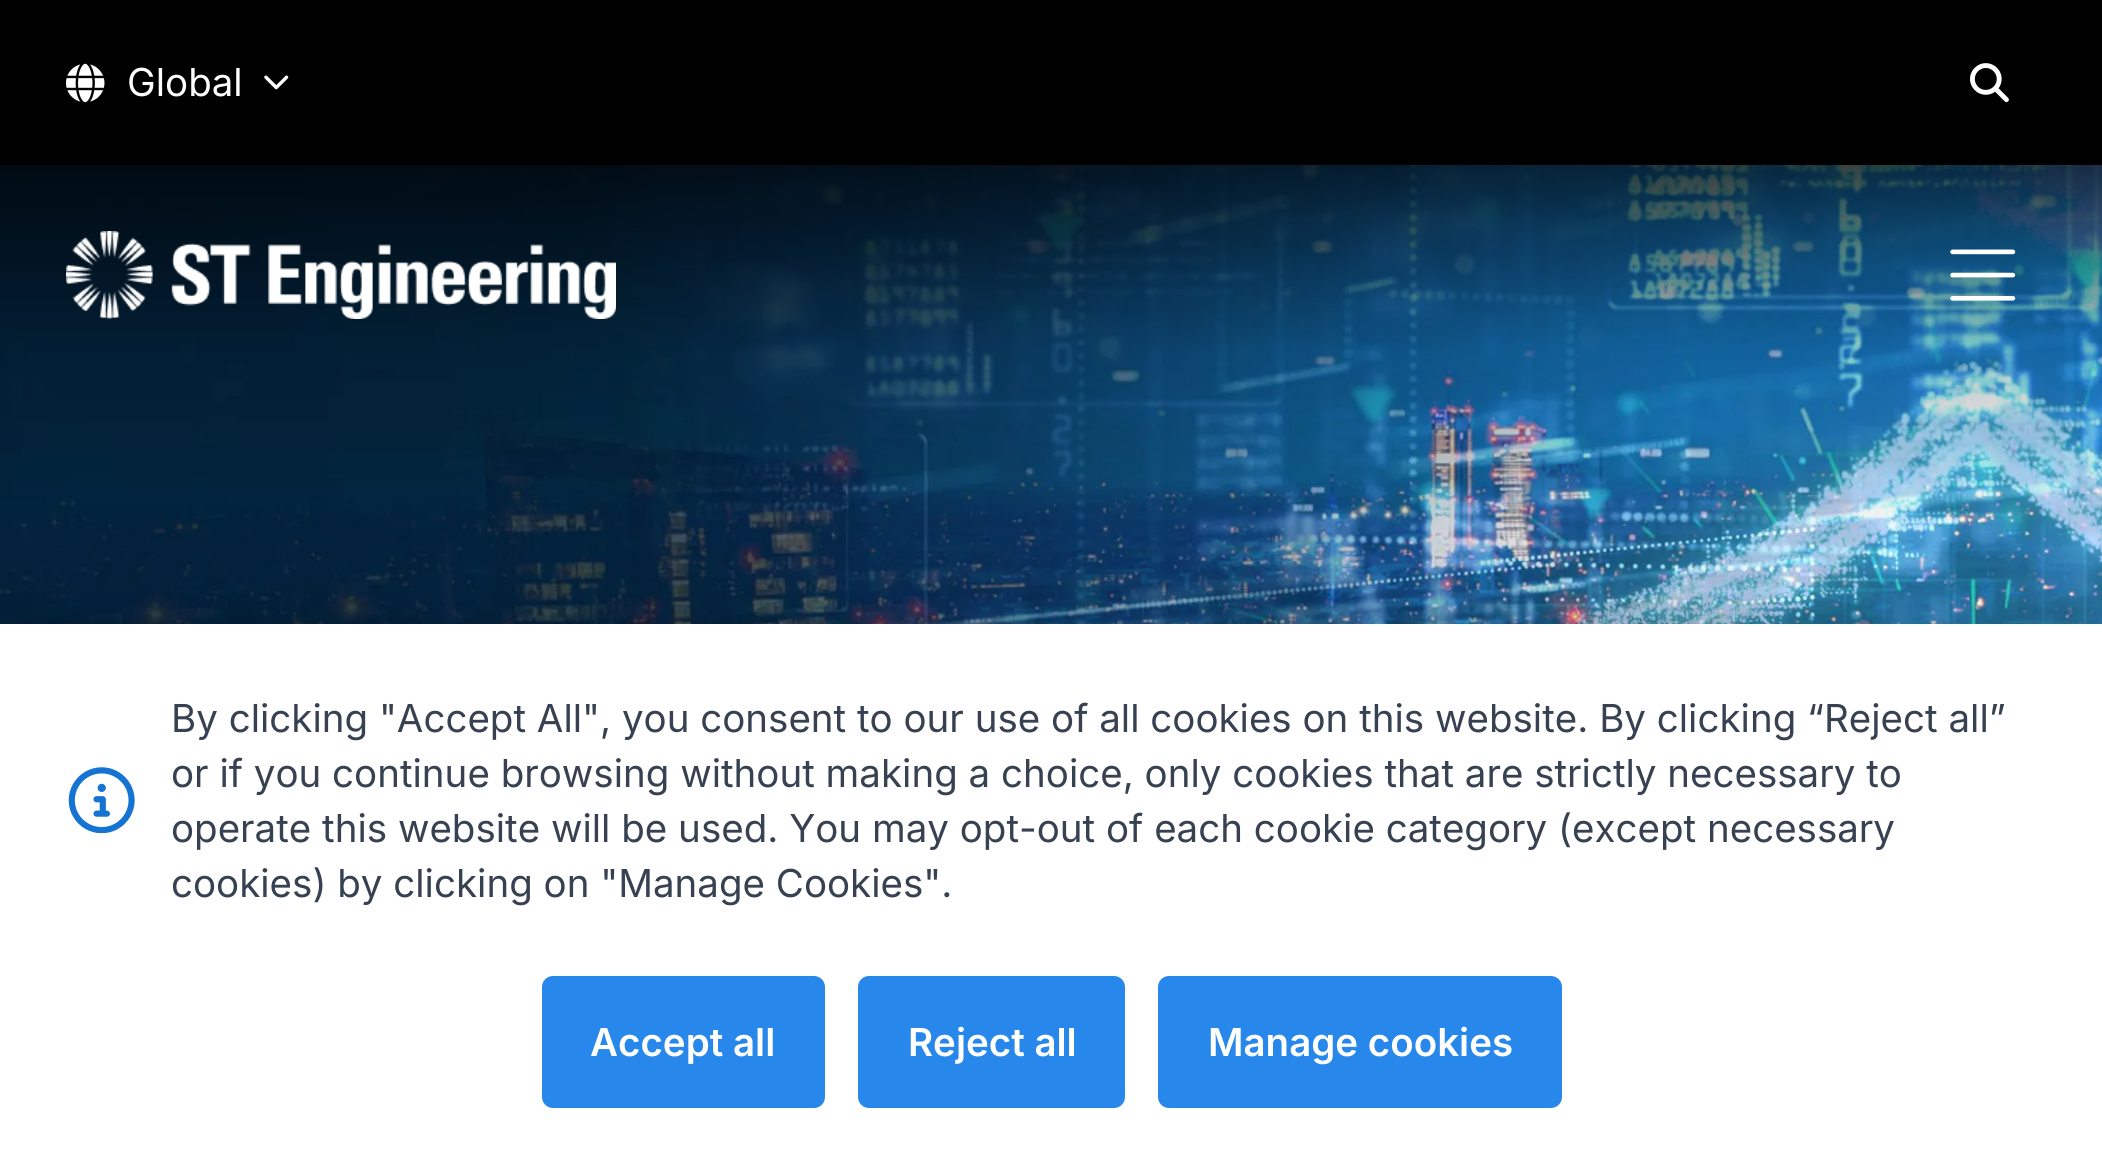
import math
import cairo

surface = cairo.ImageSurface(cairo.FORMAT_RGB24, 2102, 1172)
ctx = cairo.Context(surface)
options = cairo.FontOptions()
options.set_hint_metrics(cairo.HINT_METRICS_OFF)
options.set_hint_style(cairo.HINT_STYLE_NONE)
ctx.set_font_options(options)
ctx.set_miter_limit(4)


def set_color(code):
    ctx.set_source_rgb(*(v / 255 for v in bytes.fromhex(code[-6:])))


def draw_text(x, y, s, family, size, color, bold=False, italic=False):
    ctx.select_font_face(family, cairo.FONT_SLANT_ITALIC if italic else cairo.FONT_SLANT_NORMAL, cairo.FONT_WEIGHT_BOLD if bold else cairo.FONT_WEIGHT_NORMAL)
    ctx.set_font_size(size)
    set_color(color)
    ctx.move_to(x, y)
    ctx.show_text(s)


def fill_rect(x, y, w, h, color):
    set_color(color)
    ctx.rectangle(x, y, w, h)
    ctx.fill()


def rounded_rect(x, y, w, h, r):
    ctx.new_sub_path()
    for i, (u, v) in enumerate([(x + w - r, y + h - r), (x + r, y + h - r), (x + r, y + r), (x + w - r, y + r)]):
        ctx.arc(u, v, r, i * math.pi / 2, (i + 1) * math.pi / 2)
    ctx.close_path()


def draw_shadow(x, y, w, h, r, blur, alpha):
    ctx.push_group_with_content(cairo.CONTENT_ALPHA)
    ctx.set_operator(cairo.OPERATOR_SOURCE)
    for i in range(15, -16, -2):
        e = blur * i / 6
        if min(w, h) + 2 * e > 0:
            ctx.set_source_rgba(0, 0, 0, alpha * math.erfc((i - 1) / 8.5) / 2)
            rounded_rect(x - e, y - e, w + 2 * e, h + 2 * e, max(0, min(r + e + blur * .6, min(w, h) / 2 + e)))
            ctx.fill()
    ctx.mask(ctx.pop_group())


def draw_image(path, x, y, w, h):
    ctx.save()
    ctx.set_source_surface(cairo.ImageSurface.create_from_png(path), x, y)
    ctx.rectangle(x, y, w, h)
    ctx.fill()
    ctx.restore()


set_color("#ffffff")
ctx.paint()
fill_rect(0, 0, 2102, 165, "#000000")
draw_image("assets/img1.png", 66, 63, 39, 40)
draw_text(127, 96, "Global", "Inter", 38.5, "#ffffff")
draw_image("assets/img2.png", 264, 75, 25, 15)
draw_image("assets/img3.png", 1970, 63, 39, 40)
draw_image("assets/img6.png", 0, 165, 2102, 459)
draw_image("assets/img4.png", 66, 231, 550, 88)
draw_image("assets/img5.png", 1950, 249, 66, 52)
set_color("#000000")
draw_shadow(0, 624, 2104, 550, 0, 27.5, 0.1)
fill_rect(0, 624, 2102, 548, "#ffffff")
draw_image("assets/img7.png", 68, 767, 67, 66)
draw_text(171, 732, "By clicking \"Accept All\", you consent to our use of all cookies on this website. By clicking “Reject all”", "Inter", 38.5, "#374151")
draw_text(171, 787, "or if you continue browsing without making a choice, only cookies that are strictly necessary to", "Inter", 38.5, "#374151")
draw_text(171, 842, "operate this website will be used. You may opt-out of each cookie category (except necessary", "Inter", 38.5, "#374151")
draw_text(171, 897, "cookies) by clicking on \"Manage Cookies\".", "Inter", 38.5, "#374151")
set_color("#2787ea")
rounded_rect(542, 976, 283, 132, 11)
ctx.fill()
draw_text(590, 1056, "Accept all", "Inter SemiBold", 38.5, "#ffffff")
set_color("#2787ea")
rounded_rect(858, 976, 267, 132, 11)
ctx.fill()
draw_text(908, 1056, "Reject all", "Inter SemiBold", 38.5, "#ffffff")
set_color("#2787ea")
rounded_rect(1158, 976, 404, 132, 11)
ctx.fill()
draw_text(1208, 1056, "Manage cookies", "Inter SemiBold", 38.5, "#ffffff")
surface.write_to_png("output.png")
